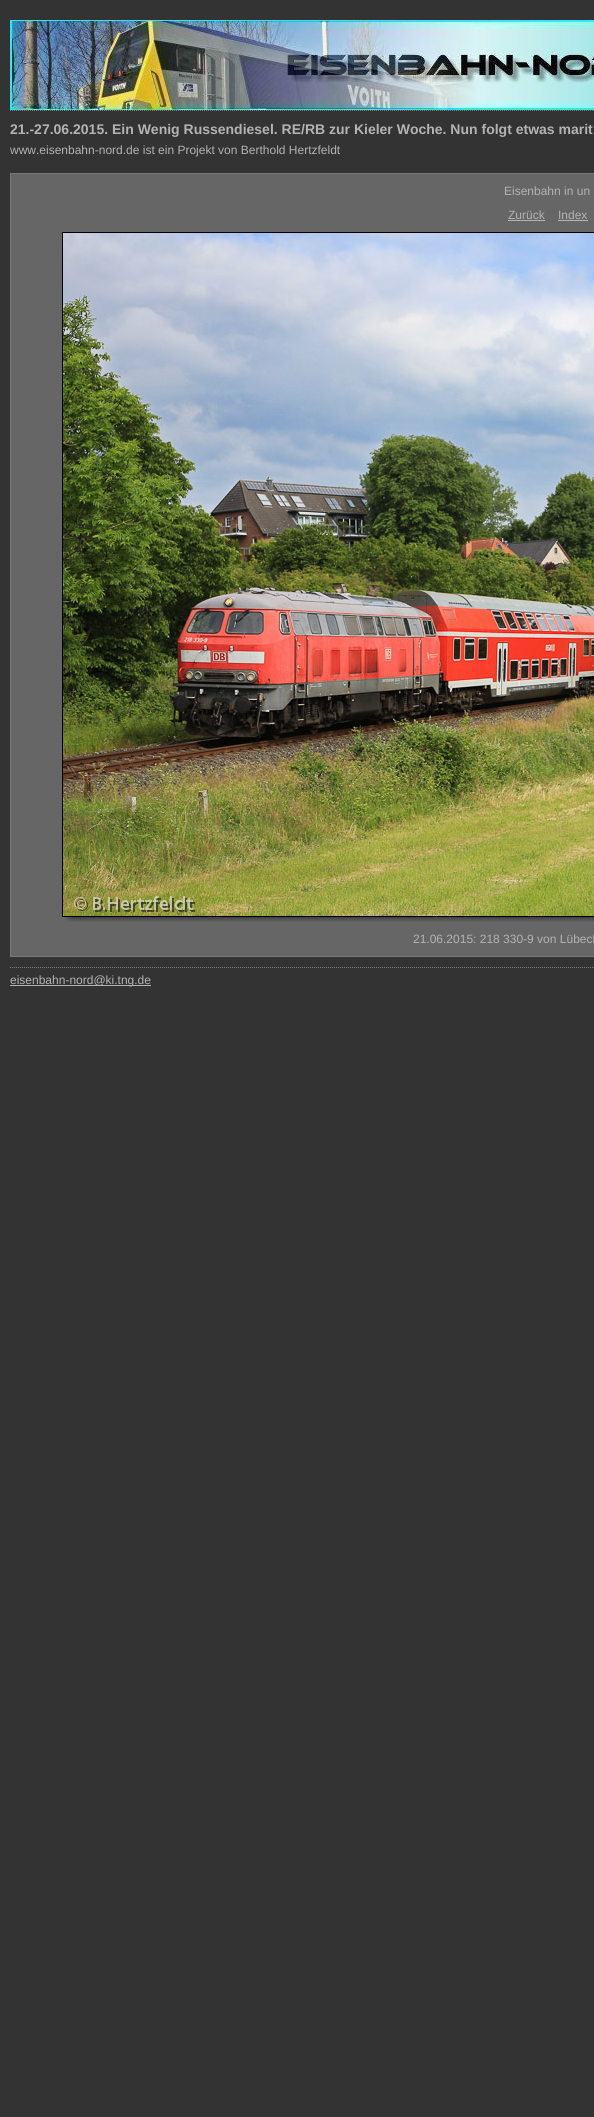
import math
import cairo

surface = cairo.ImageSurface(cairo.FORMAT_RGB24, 594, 2117)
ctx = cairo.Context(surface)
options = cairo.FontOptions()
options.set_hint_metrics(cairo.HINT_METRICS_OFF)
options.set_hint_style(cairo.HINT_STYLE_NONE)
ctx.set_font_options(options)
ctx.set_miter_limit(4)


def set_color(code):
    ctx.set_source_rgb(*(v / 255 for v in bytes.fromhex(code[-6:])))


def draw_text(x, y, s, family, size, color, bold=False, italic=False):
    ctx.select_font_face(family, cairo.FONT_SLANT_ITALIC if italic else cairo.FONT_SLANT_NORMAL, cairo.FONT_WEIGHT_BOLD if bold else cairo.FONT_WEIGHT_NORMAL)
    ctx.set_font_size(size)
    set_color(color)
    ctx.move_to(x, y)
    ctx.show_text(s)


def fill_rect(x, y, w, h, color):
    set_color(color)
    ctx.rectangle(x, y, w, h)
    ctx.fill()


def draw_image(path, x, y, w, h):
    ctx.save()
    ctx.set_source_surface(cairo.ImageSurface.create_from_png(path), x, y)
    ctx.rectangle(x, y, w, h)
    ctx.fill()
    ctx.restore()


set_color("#333333")
ctx.paint()
draw_image("assets/img1.png", 10, 20, 584, 90)
ctx.new_path()
ctx.move_to(10, 110.5)
ctx.line_to(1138, 110.5)
set_color("#7f7f7f")
ctx.set_line_width(1)
ctx.set_dash([1, 1])
ctx.stroke()
draw_text(10, 134, "21.-27.06.2015. Ein Wenig Russendiesel. RE/RB zur Kieler Woche. Nun folgt etwas marit", "Liberation Sans", 14, "#b3b3b3", bold=True)
draw_text(10, 154, "www.eisenbahn-nord.de ist ein Projekt von Berthold Hertzfeldt", "Liberation Sans", 12, "#b3b3b3")
ctx.new_path()
ctx.move_to(10, 967.5)
ctx.line_to(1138, 967.5)
set_color("#7f7f7f")
ctx.stroke()
set_color("#666666")
ctx.rectangle(10.5, 173.5, 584, 783)
ctx.fill_preserve()
set_color("#787878")
ctx.set_dash([])
ctx.stroke()
draw_text(504, 195, "Eisenbahn in un", "Liberation Sans", 12, "#b3b3b3")
draw_text(508, 219, "Zurück", "Liberation Sans", 12, "#b3b3b3")
fill_rect(508, 220, 37, 1, "#b3b3b3")
draw_text(558, 219, "Index", "Liberation Sans", 12, "#b3b3b3")
fill_rect(558, 220, 30, 1, "#b3b3b3")
draw_image("assets/img2.png", 72, 917, 522, 5)
ctx.rectangle(62.5, 232.5, 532, 684)
set_color("#000000")
ctx.stroke()
draw_image("assets/img3.png", 63, 233, 531, 683)
draw_image("assets/img4.png", 65, 917, 7, 5)
draw_text(413, 943, "21.06.2015: 218 330-9 von Lübeck", "Liberation Sans", 12, "#b3b3b3")
fill_rect(10, 985, 141, 1, "#b3b3b3")
draw_text(10, 984, "eisenbahn-nord@ki.tng.de", "Liberation Sans", 12, "#b3b3b3")
surface.write_to_png("output.png")
